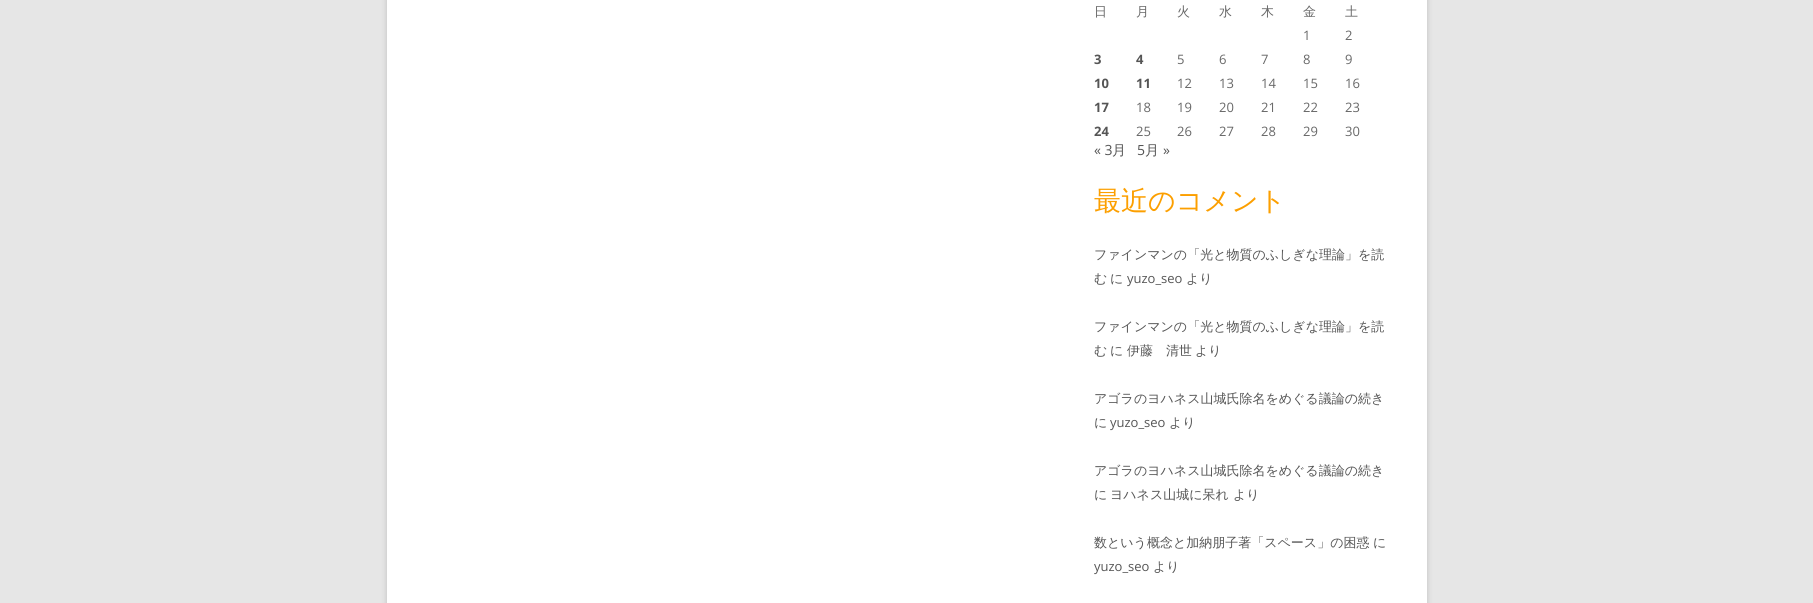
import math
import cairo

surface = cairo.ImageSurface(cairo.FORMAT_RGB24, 1813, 603)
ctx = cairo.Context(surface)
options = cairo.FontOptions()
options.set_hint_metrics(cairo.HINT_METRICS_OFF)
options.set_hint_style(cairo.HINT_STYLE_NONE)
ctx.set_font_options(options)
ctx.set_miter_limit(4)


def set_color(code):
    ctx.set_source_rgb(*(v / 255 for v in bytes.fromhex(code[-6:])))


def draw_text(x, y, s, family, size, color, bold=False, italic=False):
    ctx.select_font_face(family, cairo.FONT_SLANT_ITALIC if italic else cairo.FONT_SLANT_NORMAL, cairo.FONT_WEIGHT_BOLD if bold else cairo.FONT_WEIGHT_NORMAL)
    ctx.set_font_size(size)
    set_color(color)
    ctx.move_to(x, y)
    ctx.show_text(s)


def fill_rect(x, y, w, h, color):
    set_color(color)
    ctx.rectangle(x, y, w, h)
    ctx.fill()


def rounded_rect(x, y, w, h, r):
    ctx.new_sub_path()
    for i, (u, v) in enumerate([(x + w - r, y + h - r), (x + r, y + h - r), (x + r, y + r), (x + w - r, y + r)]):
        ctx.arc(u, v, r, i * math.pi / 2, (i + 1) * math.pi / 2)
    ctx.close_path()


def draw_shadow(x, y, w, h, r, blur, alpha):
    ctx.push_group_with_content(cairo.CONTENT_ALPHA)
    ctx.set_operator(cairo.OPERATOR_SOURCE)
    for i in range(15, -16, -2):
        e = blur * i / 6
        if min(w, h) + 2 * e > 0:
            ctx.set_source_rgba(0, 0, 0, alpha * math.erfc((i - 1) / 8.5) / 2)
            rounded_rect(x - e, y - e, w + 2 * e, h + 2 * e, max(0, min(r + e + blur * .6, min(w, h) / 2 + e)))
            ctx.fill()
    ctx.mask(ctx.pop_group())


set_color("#e6e6e6")
ctx.paint()
set_color("#646464")
draw_shadow(387, -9, 1040, 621, 0, 3, 0.3)
fill_rect(387, 0, 1040, 603, "#ffffff")
draw_text(1094, 16, "日", "WenQuanYi Zen Hei Medium", 13, "#686868")
draw_text(1136, 16, "月", "WenQuanYi Zen Hei Medium", 13, "#686868")
draw_text(1177, 16, "火", "WenQuanYi Zen Hei Medium", 13, "#686868")
draw_text(1219, 16, "水", "WenQuanYi Zen Hei Medium", 13, "#686868")
draw_text(1261, 16, "木", "WenQuanYi Zen Hei Medium", 13, "#686868")
draw_text(1303, 16, "金", "WenQuanYi Zen Hei Medium", 13, "#686868")
draw_text(1345, 16, "土", "WenQuanYi Zen Hei Medium", 13, "#686868")
draw_text(1303, 40, "1", "Open Sans", 13, "#686868")
draw_text(1345, 40, "2", "Open Sans", 13, "#686868")
draw_text(1094, 64, "3", "Open Sans", 13, "#555555", bold=True)
draw_text(1136, 64, "4", "Open Sans", 13, "#555555", bold=True)
draw_text(1177, 64, "5", "Open Sans", 13, "#686868")
draw_text(1219, 64, "6", "Open Sans", 13, "#686868")
draw_text(1261, 64, "7", "Open Sans", 13, "#686868")
draw_text(1303, 64, "8", "Open Sans", 13, "#686868")
draw_text(1345, 64, "9", "Open Sans", 13, "#686868")
draw_text(1094, 88, "10", "Open Sans", 13, "#555555", bold=True)
draw_text(1136, 88, "11", "Open Sans", 13, "#555555", bold=True)
draw_text(1177, 88, "12", "Open Sans", 13, "#686868")
draw_text(1219, 88, "13", "Open Sans", 13, "#686868")
draw_text(1261, 88, "14", "Open Sans", 13, "#686868")
draw_text(1303, 88, "15", "Open Sans", 13, "#686868")
draw_text(1345, 88, "16", "Open Sans", 13, "#686868")
draw_text(1094, 112, "17", "Open Sans", 13, "#555555", bold=True)
draw_text(1136, 112, "18", "Open Sans", 13, "#686868")
draw_text(1177, 112, "19", "Open Sans", 13, "#686868")
draw_text(1219, 112, "20", "Open Sans", 13, "#686868")
draw_text(1261, 112, "21", "Open Sans", 13, "#686868")
draw_text(1303, 112, "22", "Open Sans", 13, "#686868")
draw_text(1345, 112, "23", "Open Sans", 13, "#686868")
draw_text(1094, 136, "24", "Open Sans", 13, "#555555", bold=True)
draw_text(1136, 136, "25", "Open Sans", 13, "#686868")
draw_text(1177, 136, "26", "Open Sans", 13, "#686868")
draw_text(1219, 136, "27", "Open Sans", 13, "#686868")
draw_text(1261, 136, "28", "Open Sans", 13, "#686868")
draw_text(1303, 136, "29", "Open Sans", 13, "#686868")
draw_text(1345, 136, "30", "Open Sans", 13, "#686868")
draw_text(1094, 155, "« 3", "Open Sans", 14, "#555555")
draw_text(1112, 155, "月", "WenQuanYi Zen Hei Medium", 14, "#555555")
draw_text(1137, 155, "5", "Open Sans", 14, "#555555")
draw_text(1145, 155, "月", "WenQuanYi Zen Hei Medium", 14, "#555555")
draw_text(1163, 155, "»", "Open Sans", 14, "#555555")
draw_text(1094, 210, "最近のコメント", "WenQuanYi Zen Hei Medium", 27, "#fc9f00")
draw_text(1094, 259, "ファインマンの「光と物質のふしぎな理論」を読", "WenQuanYi Zen Hei Medium", 13, "#555555")
draw_text(1094, 283, "む", "WenQuanYi Zen Hei Medium", 13, "#555555")
draw_text(1110, 283, "に", "WenQuanYi Zen Hei Medium", 13, "#555555")
draw_text(1127, 283, "yuzo_seo", "Open Sans", 13, "#555555")
draw_text(1186, 283, "より", "WenQuanYi Zen Hei Medium", 13, "#555555")
draw_text(1094, 331, "ファインマンの「光と物質のふしぎな理論」を読", "WenQuanYi Zen Hei Medium", 13, "#555555")
draw_text(1094, 355, "む", "WenQuanYi Zen Hei Medium", 13, "#555555")
draw_text(1110, 355, "に", "WenQuanYi Zen Hei Medium", 13, "#555555")
draw_text(1127, 355, "伊藤　清世", "WenQuanYi Zen Hei Medium", 13, "#555555")
draw_text(1195, 355, "より", "WenQuanYi Zen Hei Medium", 13, "#555555")
draw_text(1094, 403, "アゴラのヨハネス山城氏除名をめぐる議論の続き", "WenQuanYi Zen Hei Medium", 13, "#555555")
draw_text(1094, 427, "に", "WenQuanYi Zen Hei Medium", 13, "#555555")
draw_text(1110, 427, "yuzo_seo", "Open Sans", 13, "#555555")
draw_text(1169, 427, "より", "WenQuanYi Zen Hei Medium", 13, "#555555")
draw_text(1094, 475, "アゴラのヨハネス山城氏除名をめぐる議論の続き", "WenQuanYi Zen Hei Medium", 13, "#555555")
draw_text(1094, 499, "に", "WenQuanYi Zen Hei Medium", 13, "#555555")
draw_text(1110, 499, "ヨハネス山城に呆れ", "WenQuanYi Zen Hei Medium", 13, "#555555")
draw_text(1233, 499, "より", "WenQuanYi Zen Hei Medium", 13, "#555555")
draw_text(1094, 547, "数という概念と加納朋子著「スペース」の困惑", "WenQuanYi Zen Hei Medium", 13, "#555555")
draw_text(1373, 547, "に", "WenQuanYi Zen Hei Medium", 13, "#555555")
draw_text(1094, 571, "yuzo_seo", "Open Sans", 13, "#555555")
draw_text(1153, 571, "より", "WenQuanYi Zen Hei Medium", 13, "#555555")
surface.write_to_png("output.png")
